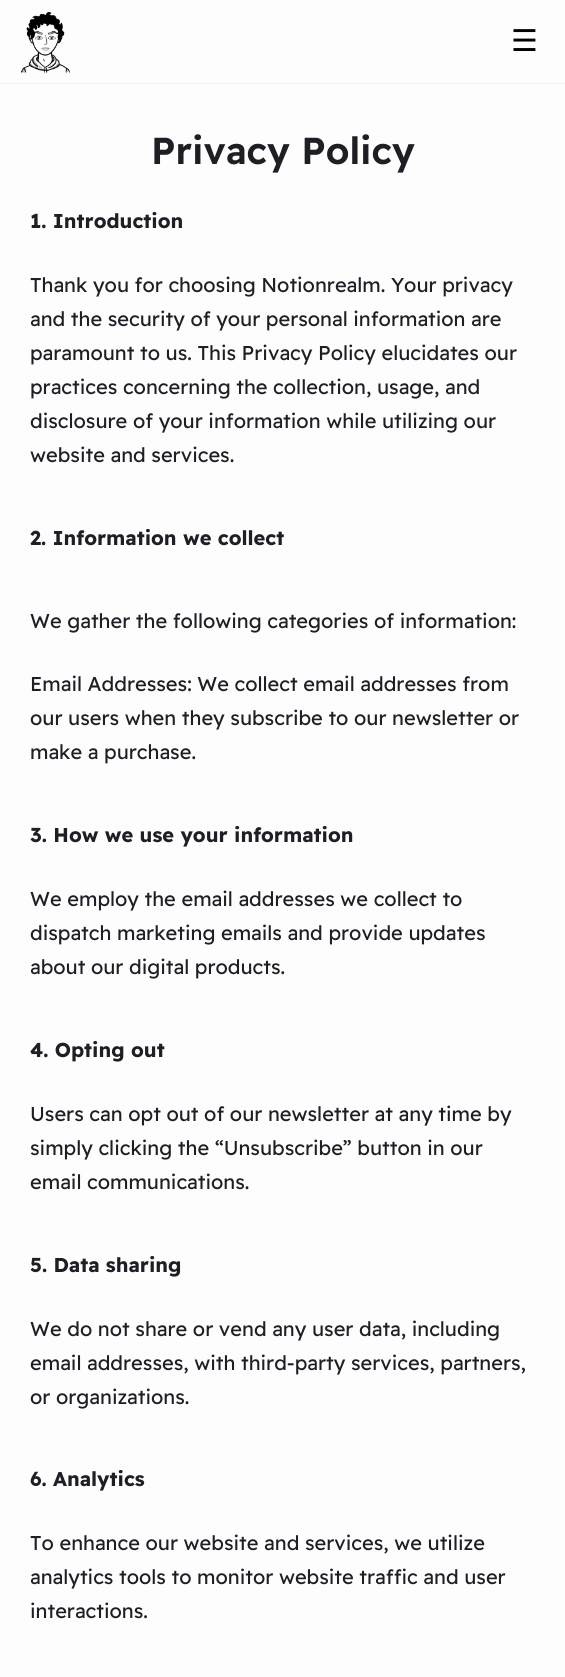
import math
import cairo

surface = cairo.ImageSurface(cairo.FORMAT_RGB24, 565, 1677)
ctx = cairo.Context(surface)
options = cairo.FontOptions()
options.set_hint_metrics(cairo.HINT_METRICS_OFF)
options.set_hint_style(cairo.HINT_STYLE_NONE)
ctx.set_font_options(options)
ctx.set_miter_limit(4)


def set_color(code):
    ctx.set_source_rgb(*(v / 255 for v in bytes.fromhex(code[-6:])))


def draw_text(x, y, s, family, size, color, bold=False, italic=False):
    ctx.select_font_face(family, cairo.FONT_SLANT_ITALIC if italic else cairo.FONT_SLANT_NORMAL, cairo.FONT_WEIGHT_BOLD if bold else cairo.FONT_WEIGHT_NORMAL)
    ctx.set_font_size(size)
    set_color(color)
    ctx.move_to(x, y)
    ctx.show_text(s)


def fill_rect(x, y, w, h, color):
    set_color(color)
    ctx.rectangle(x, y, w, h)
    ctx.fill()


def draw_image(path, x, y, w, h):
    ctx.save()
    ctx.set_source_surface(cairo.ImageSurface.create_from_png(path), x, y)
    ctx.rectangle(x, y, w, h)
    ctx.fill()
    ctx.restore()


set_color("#fdfdfd")
ctx.paint()
fill_rect(0, 83, 565, 1, "#f1f1ef")
draw_image("assets/img1.png", 20, 12, 50, 61)
draw_text(511, 51, "☰", "DejaVu Sans", 30, "#000000")
draw_text(151, 164, "Privacy Policy", "Readex Pro SemiBold", 37.5, "#1d1f25")
draw_text(30, 228, "1. Introduction", "Readex Pro", 20, "#1d1f25", bold=True)
draw_text(30, 292, "Thank you for choosing Notionrealm. Your privacy", "Readex Pro", 20, "#1d1f25")
draw_text(30, 326, "and the security of your personal information are", "Readex Pro", 20, "#1d1f25")
draw_text(30, 360, "paramount to us. This Privacy Policy elucidates our", "Readex Pro", 20, "#1d1f25")
draw_text(30, 394, "practices concerning the collection, usage, and", "Readex Pro", 20, "#1d1f25")
draw_text(30, 428, "disclosure of your information while utilizing our", "Readex Pro", 20, "#1d1f25")
draw_text(30, 462, "website and services.", "Readex Pro", 20, "#1d1f25")
draw_text(30, 545, "2. Information we collect", "Readex Pro", 20, "#1d1f25", bold=True)
draw_text(30, 628, "We gather the following categories of information:", "Readex Pro", 20, "#1d1f25")
draw_text(30, 691, "Email Addresses: We collect email addresses from", "Readex Pro", 20, "#1d1f25")
draw_text(30, 725, "our users when they subscribe to our newsletter or", "Readex Pro", 20, "#1d1f25")
draw_text(30, 759, "make a purchase.", "Readex Pro", 20, "#1d1f25")
draw_text(30, 842, "3. How we use your information", "Readex Pro", 20, "#1d1f25", bold=True)
draw_text(30, 906, "We employ the email addresses we collect to", "Readex Pro", 20, "#1d1f25")
draw_text(30, 940, "dispatch marketing emails and provide updates", "Readex Pro", 20, "#1d1f25")
draw_text(30, 974, "about our digital products.", "Readex Pro", 20, "#1d1f25")
draw_text(30, 1057, "4. Opting out", "Readex Pro", 20, "#1d1f25", bold=True)
draw_text(30, 1121, "Users can opt out of our newsletter at any time by", "Readex Pro", 20, "#1d1f25")
draw_text(30, 1155, "simply clicking the “Unsubscribe” button in our", "Readex Pro", 20, "#1d1f25")
draw_text(30, 1189, "email communications.", "Readex Pro", 20, "#1d1f25")
draw_text(30, 1272, "5. Data sharing", "Readex Pro", 20, "#1d1f25", bold=True)
draw_text(30, 1336, "We do not share or vend any user data, including", "Readex Pro", 20, "#1d1f25")
draw_text(30, 1370, "email addresses, with third-party services, partners,", "Readex Pro", 20, "#1d1f25")
draw_text(30, 1404, "or organizations.", "Readex Pro", 20, "#1d1f25")
draw_text(30, 1486, "6. Analytics", "Readex Pro", 20, "#1d1f25", bold=True)
draw_text(30, 1550, "To enhance our website and services, we utilize", "Readex Pro", 20, "#1d1f25")
draw_text(30, 1584, "analytics tools to monitor website traffic and user", "Readex Pro", 20, "#1d1f25")
draw_text(30, 1618, "interactions.", "Readex Pro", 20, "#1d1f25")
surface.write_to_png("output.png")
